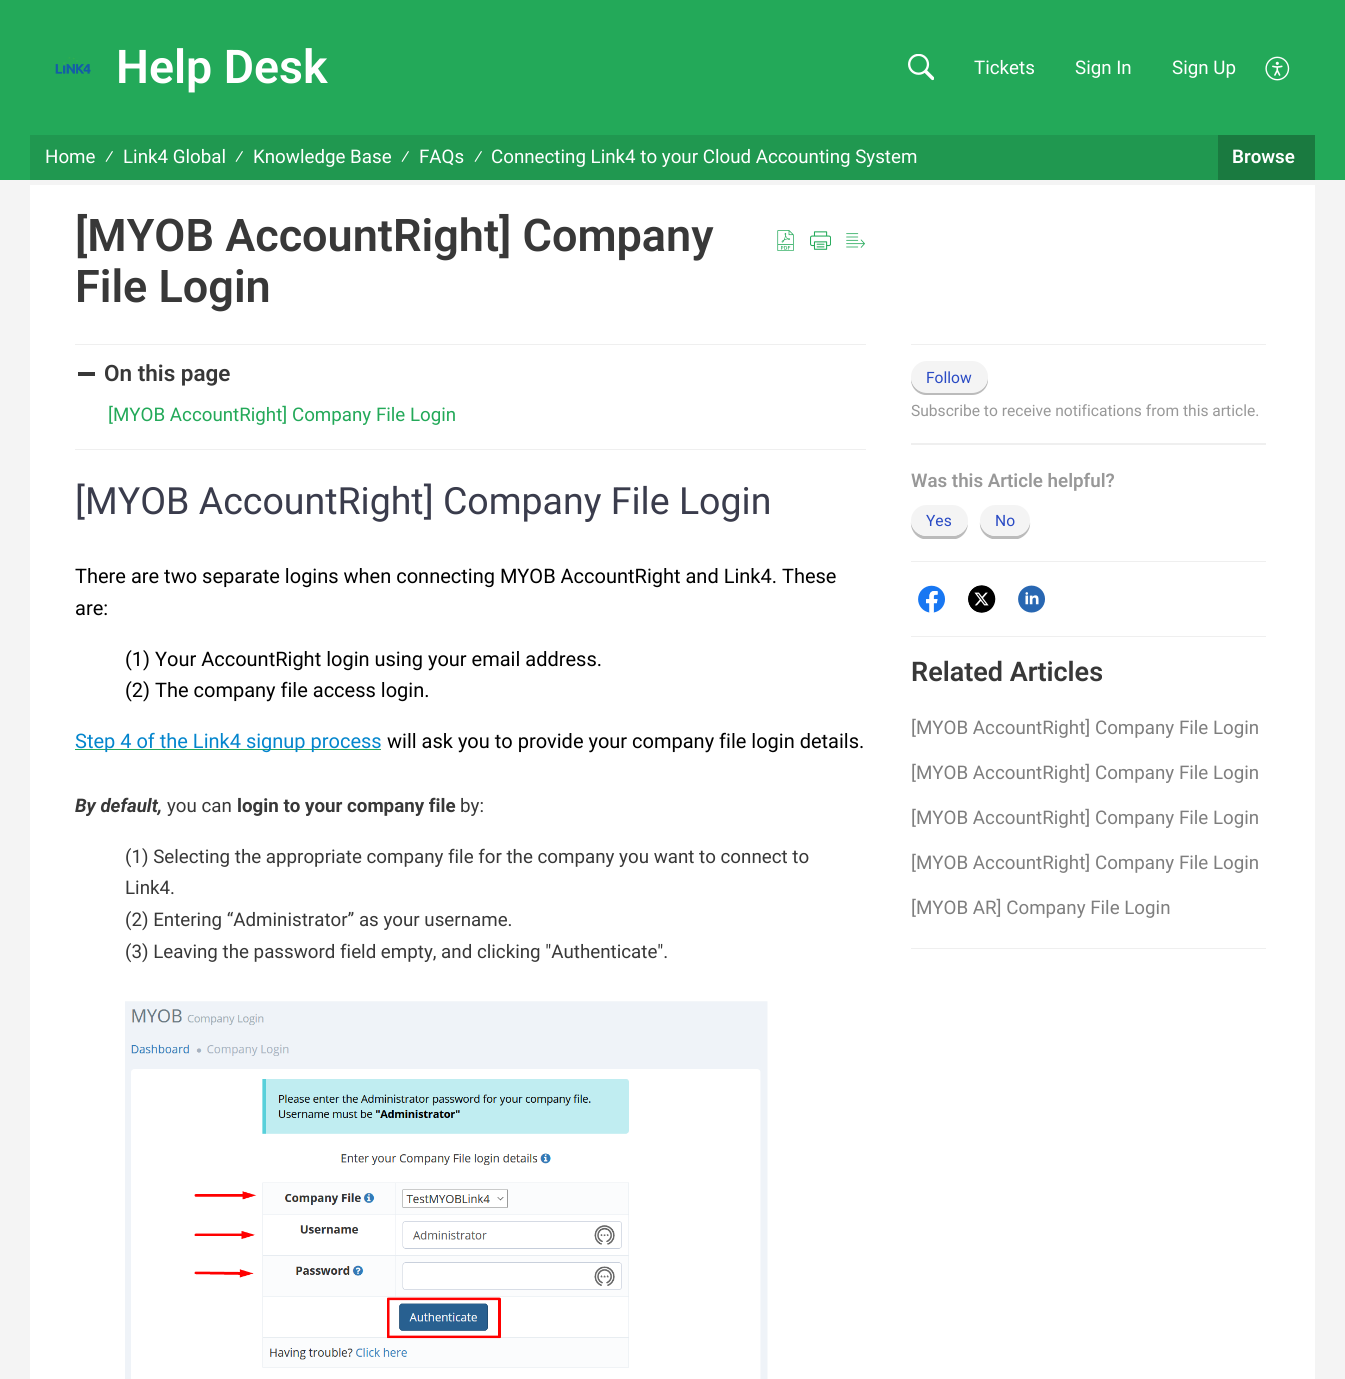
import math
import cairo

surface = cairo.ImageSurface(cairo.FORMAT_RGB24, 1345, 1379)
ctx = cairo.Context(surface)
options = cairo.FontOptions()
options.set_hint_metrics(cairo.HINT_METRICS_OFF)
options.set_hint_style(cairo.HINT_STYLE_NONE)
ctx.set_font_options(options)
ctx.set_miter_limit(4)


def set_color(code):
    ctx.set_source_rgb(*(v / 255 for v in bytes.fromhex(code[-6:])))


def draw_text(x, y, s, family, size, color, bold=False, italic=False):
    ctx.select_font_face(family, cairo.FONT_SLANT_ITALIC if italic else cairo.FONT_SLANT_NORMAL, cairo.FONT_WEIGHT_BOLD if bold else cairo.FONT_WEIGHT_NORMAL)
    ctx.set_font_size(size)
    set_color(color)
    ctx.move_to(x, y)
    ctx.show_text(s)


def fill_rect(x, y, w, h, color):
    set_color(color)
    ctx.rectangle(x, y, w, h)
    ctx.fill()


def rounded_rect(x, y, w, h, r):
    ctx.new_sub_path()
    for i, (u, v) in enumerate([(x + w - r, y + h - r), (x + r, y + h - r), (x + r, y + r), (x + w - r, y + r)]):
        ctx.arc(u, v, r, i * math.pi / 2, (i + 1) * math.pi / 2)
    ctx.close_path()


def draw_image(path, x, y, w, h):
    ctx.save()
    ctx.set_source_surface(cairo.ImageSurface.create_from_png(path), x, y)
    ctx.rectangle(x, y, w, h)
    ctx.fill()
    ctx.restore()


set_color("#f4f4f4")
ctx.paint()
fill_rect(0, 0, 1345, 180, "#23a959")
draw_image("assets/img1.png", 55, 57, 36, 17)
draw_text(116, 83, "Help Desk", "Roboto SemiBold", 46.5, "#ffffff")
draw_image("assets/img2.png", 908, 54, 26, 27)
draw_text(974, 74, "Tickets", "Roboto", 18.75, "#ffffff")
draw_text(1075, 74, "Sign In", "Roboto", 18.75, "#ffffff")
draw_text(1172, 74, "Sign Up", "Roboto", 18.75, "#ffffff")
draw_image("assets/img3.png", 1265, 56, 25, 25)
fill_rect(30, 135, 1188, 45, "#209850")
draw_text(45, 163, "Home", "Roboto", 18.75, "#ffffff")
draw_text(105, 163, "⁄", "Roboto", 18.75, "#ffffff")
draw_text(123, 163, "Link4 Global", "Roboto", 18.75, "#ffffff")
draw_text(235, 163, "⁄", "Roboto", 18.75, "#ffffff")
draw_text(253, 163, "Knowledge Base", "Roboto", 18.75, "#ffffff")
draw_text(401, 163, "⁄", "Roboto", 18.75, "#ffffff")
draw_text(419, 163, "FAQs", "Roboto", 18.75, "#ffffff")
draw_text(474, 163, "⁄", "Roboto", 18.75, "#ffffff")
draw_text(491, 163, "Connecting Link4 to your Cloud Accounting System", "Roboto", 18.75, "#ffffff")
fill_rect(1218, 135, 97, 45, "#1a7a40")
draw_text(1232, 163, "Browse", "Roboto SemiBold", 18.75, "#ffffff")
fill_rect(30, 185, 1285, 1194, "#ffffff")
draw_text(75, 251, "[MYOB AccountRight] Company", "Roboto SemiBold", 45, "#383838")
draw_text(75, 302, "File Login", "Roboto SemiBold", 45, "#383838")
draw_image("assets/img4.png", 777, 230, 17, 21)
draw_image("assets/img5.png", 810, 231, 21, 19)
draw_image("assets/img6.png", 846, 233, 19, 15)
fill_rect(75, 344, 791, 1, "#efefef")
fill_rect(78, 372, 17, 4, "#383838")
draw_text(104, 381, "On this page", "Roboto SemiBold", 22.5, "#383838")
draw_text(108, 421, "[MYOB AccountRight] Company File Login", "Roboto", 18.75, "#23a959")
fill_rect(75, 449, 791, 1, "#efefef")
draw_text(75, 514, "[MYOB AccountRight] Company File Login", "Roboto", 37.5, "#3a3c4c")
draw_text(75, 583, "There are two separate logins when connecting MYOB AccountRight and Link4. These", "Roboto", 20, "#000000")
draw_text(75, 615, "are:", "Roboto", 20, "#000000")
draw_text(125, 666, "(1) Your AccountRight login using your email address.", "Roboto", 20, "#000000")
draw_text(125, 697, "(2) The company file access login.", "Roboto", 20, "#000000")
fill_rect(75, 749, 306, 1, "#23a959")
draw_text(75, 748, "Step 4 of the Link4 signup process", "Roboto", 20, "#0385cd")
draw_text(387, 748, "will ask you to provide your company file login details.", "Roboto", 20, "#000000")
draw_text(75, 812, "By default,", "Roboto", 18.75, "#383838", bold=True, italic=True)
draw_text(167, 812, "you can", "Roboto", 18.75, "#383838")
draw_text(237, 812, "login to your company file", "Roboto", 18.75, "#383838", bold=True)
draw_text(460, 812, "by:", "Roboto", 18.75, "#383838")
draw_text(125, 863, "(1) Selecting the appropriate company file for the company you want to connect to", "Roboto", 18.75, "#383838")
draw_text(125, 894, "Link4.", "Roboto", 18.75, "#383838")
draw_text(125, 926, "(2) Entering “Administrator” as your username.", "Roboto", 18.75, "#383838")
draw_text(125, 958, "(3) Leaving the password field empty, and clicking \"Authenticate\".", "Roboto", 18.75, "#383838")
draw_image("assets/img7.png", 125, 1001, 643, 378)
fill_rect(911, 344, 355, 1, "#efefef")
fill_rect(911, 443, 355, 2, "#efefef")
set_color("#bbbbbb")
ctx.new_path()
ctx.move_to(911, 377)
ctx.line_to(911, 380)
ctx.curve_to(911, 388, 918, 395, 926, 395)
ctx.line_to(972, 395)
ctx.curve_to(981, 395, 988, 388, 988, 380)
ctx.line_to(987, 375)
ctx.curve_to(988, 379, 987, 383, 985, 386)
ctx.curve_to(980, 393, 972, 392, 964, 392)
ctx.line_to(924, 392)
ctx.curve_to(916, 391, 911, 384, 911, 377)
ctx.close_path()
ctx.fill()
set_color("#f4f4f4")
rounded_rect(911, 361, 77, 32, 16)
ctx.fill()
draw_text(926, 383, "Follow", "Roboto", 15.6, "#294ac4")
draw_text(911, 416, "Subscribe to receive notifications from this article.", "Roboto", 15.6, "#989898")
fill_rect(911, 561, 355, 1, "#efefef")
draw_text(911, 487, "Was this Article helpful?", "Roboto SemiBold", 18.75, "#989898")
set_color("#bbbbbb")
ctx.new_path()
ctx.move_to(911, 521)
ctx.curve_to(910, 529, 915, 537, 923, 539)
ctx.line_to(956, 539)
ctx.curve_to(964, 537, 970, 528, 967, 519)
ctx.line_to(968, 521)
ctx.curve_to(968, 529, 961, 536, 952, 536)
ctx.line_to(927, 536)
ctx.curve_to(918, 536, 911, 529, 911, 521)
ctx.close_path()
ctx.fill()
set_color("#f4f4f4")
rounded_rect(911, 505, 57, 31, 15.5)
ctx.fill()
draw_text(926, 526, "Yes", "Roboto", 15.6, "#294ac4")
set_color("#bbbbbb")
ctx.new_path()
ctx.move_to(980, 522)
ctx.curve_to(979, 530, 985, 537, 992, 539)
ctx.line_to(1018, 539)
ctx.curve_to(1025, 537, 1031, 530, 1030, 522)
ctx.curve_to(1029, 530, 1023, 536, 1014, 536)
ctx.line_to(996, 536)
ctx.curve_to(987, 536, 981, 530, 980, 522)
ctx.close_path()
ctx.fill()
set_color("#f4f4f4")
rounded_rect(980, 505, 50, 31, 15.5)
ctx.fill()
draw_text(995, 526, "No", "Roboto", 15.6, "#294ac4")
fill_rect(911, 636, 355, 1, "#efefef")
draw_image("assets/img8.png", 918, 585, 27, 28)
draw_image("assets/img9.png", 968, 585, 28, 28)
draw_image("assets/img10.png", 1018, 585, 27, 28)
fill_rect(911, 948, 355, 1, "#efefef")
draw_text(911, 681, "Related Articles", "Roboto SemiBold", 27, "#383838")
draw_text(911, 734, "[MYOB AccountRight] Company File Login", "Roboto", 18.75, "#7e7e7e")
draw_text(911, 779, "[MYOB AccountRight] Company File Login", "Roboto", 18.75, "#7e7e7e")
draw_text(911, 824, "[MYOB AccountRight] Company File Login", "Roboto", 18.75, "#7e7e7e")
draw_text(911, 869, "[MYOB AccountRight] Company File Login", "Roboto", 18.75, "#7e7e7e")
draw_text(911, 914, "[MYOB AR] Company File Login", "Roboto", 18.75, "#7e7e7e")
surface.write_to_png("output.png")
